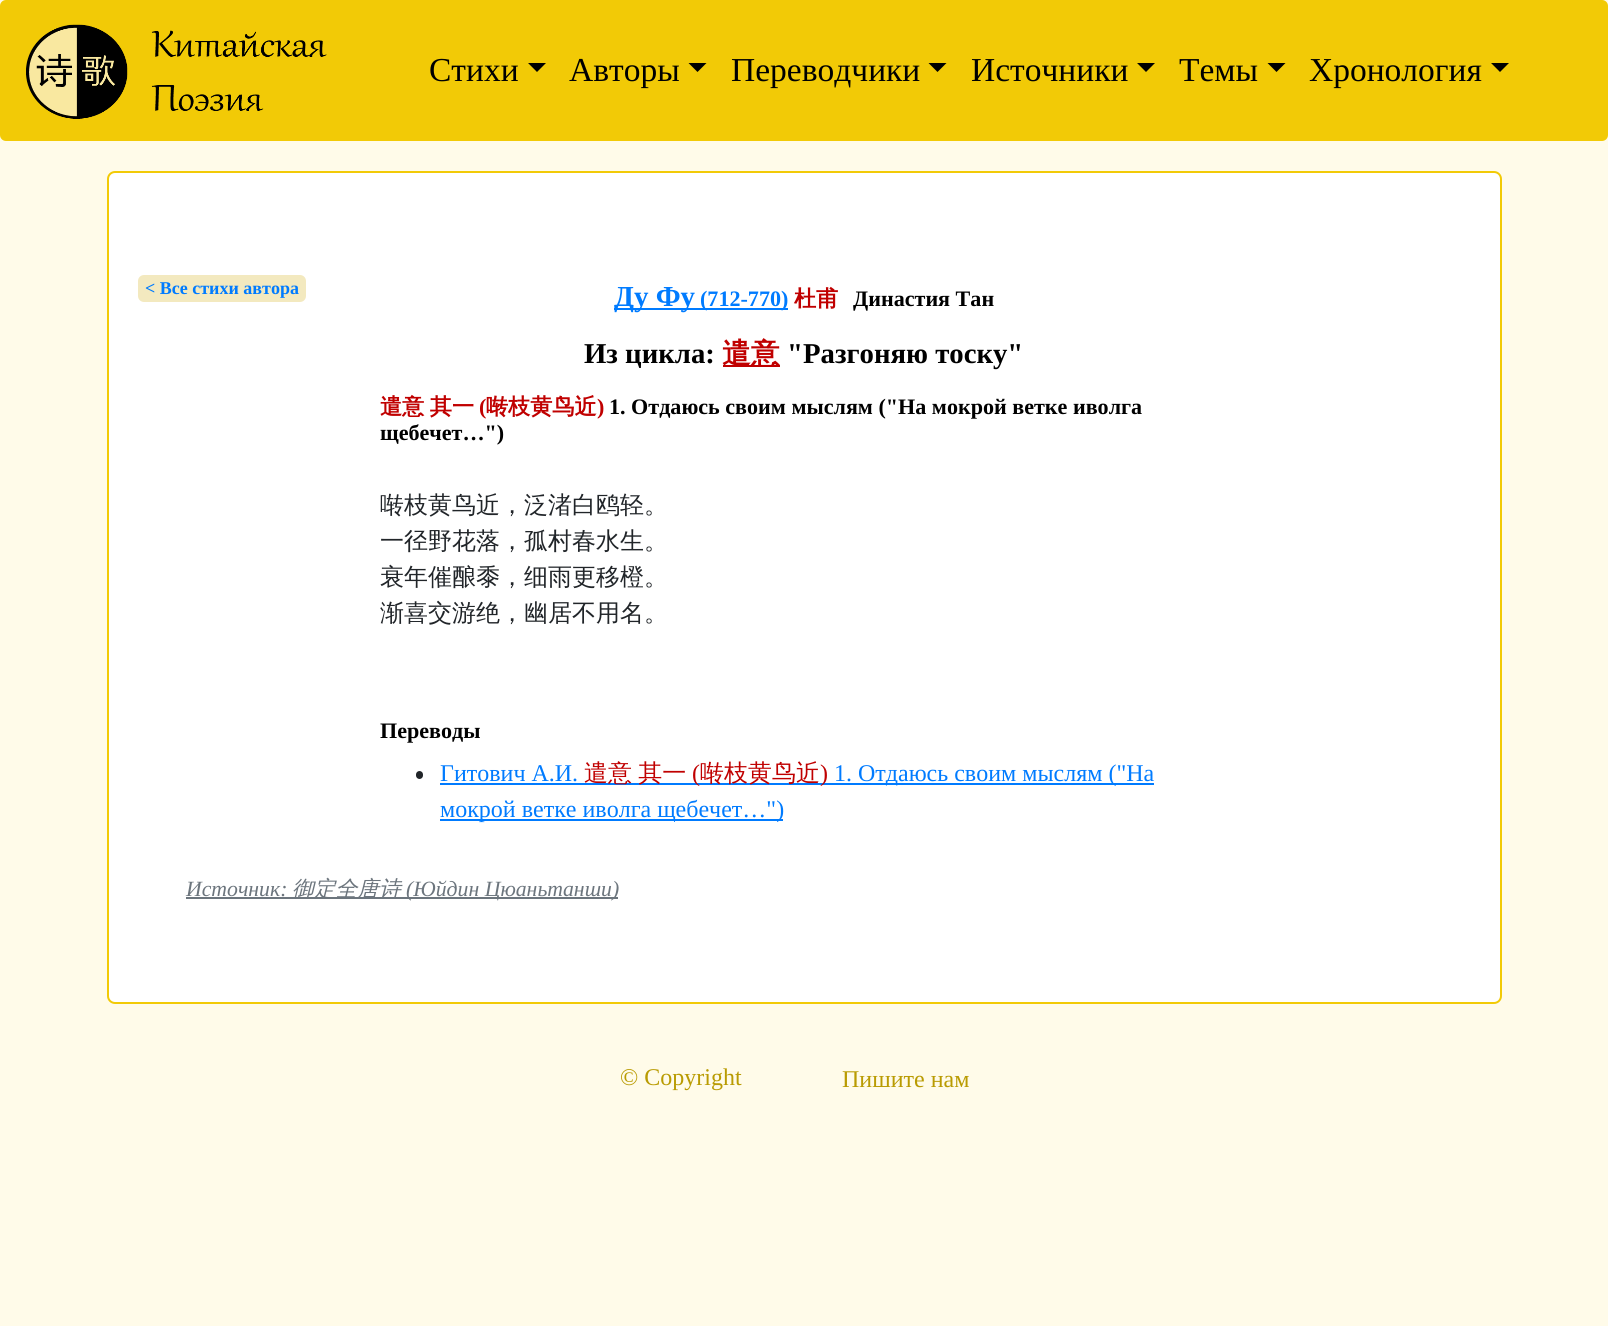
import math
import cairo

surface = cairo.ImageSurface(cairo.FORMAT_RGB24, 1608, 1326)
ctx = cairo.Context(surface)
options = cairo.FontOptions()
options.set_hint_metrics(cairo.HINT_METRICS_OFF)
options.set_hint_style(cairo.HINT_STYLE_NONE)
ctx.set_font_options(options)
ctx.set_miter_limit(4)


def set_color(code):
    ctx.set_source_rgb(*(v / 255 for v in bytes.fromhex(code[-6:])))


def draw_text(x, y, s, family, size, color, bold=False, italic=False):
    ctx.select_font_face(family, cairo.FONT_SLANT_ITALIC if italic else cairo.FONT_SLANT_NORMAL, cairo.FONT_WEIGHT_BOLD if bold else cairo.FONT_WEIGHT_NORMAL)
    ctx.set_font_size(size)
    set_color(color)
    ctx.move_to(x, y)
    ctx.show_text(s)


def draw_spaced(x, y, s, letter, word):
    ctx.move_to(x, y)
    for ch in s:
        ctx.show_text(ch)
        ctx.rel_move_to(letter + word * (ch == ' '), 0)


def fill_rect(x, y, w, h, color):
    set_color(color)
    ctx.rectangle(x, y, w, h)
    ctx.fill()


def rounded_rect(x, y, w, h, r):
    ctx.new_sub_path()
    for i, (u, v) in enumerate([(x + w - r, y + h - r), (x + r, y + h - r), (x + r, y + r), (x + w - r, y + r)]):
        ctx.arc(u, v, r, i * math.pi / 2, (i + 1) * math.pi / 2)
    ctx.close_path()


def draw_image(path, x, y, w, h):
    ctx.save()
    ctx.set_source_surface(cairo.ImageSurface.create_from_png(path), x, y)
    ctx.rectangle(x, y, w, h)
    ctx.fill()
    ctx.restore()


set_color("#fffbe9")
ctx.paint()
set_color("#f2ca06")
rounded_rect(0, 0, 1608, 141, 6)
ctx.fill()
draw_image("assets/img1.png", 26, 24, 301, 95)
draw_text(429, 81, "Стихи", "Liberation Serif", 33.5, "#000000")
ctx.new_path()
ctx.move_to(528, 63)
ctx.line_to(546, 63)
ctx.line_to(537, 72)
ctx.close_path()
ctx.fill()
draw_text(569, 81, "Авторы", "Liberation Serif", 33.5, "#000000")
ctx.new_path()
ctx.move_to(688.5, 63)
ctx.line_to(706.5, 63)
ctx.line_to(697.5, 72)
ctx.close_path()
ctx.fill()
draw_text(731, 81, "Переводчики", "Liberation Serif", 33.5, "#000000")
ctx.new_path()
ctx.move_to(928.5, 63)
ctx.line_to(946.5, 63)
ctx.line_to(937.5, 72)
ctx.close_path()
ctx.fill()
draw_text(971, 81, "Источники", "Liberation Serif", 33.5, "#000000")
ctx.new_path()
ctx.move_to(1137, 63)
ctx.line_to(1155, 63)
ctx.line_to(1146, 72)
ctx.close_path()
ctx.fill()
draw_text(1179, 81, "Темы", "Liberation Serif", 33.5, "#000000")
ctx.new_path()
ctx.move_to(1267.5, 63)
ctx.line_to(1285.5, 63)
ctx.line_to(1276.5, 72)
ctx.close_path()
ctx.fill()
draw_text(1309, 81, "Хронология", "Liberation Serif", 33.5, "#000000")
ctx.new_path()
ctx.move_to(1491, 63)
ctx.line_to(1509, 63)
ctx.line_to(1500, 72)
ctx.close_path()
ctx.fill()
set_color("#ffffff")
rounded_rect(108, 172, 1393, 831, 7)
ctx.fill_preserve()
set_color("#f2ca06")
ctx.stroke()
set_color("#f3e9bf")
rounded_rect(138, 275, 168, 27, 6)
ctx.fill()
draw_text(145, 294, "< Bсе стихи автора", "Liberation Serif", 18, "#007bff", bold=True)
fill_rect(614, 308, 174, 2, "#007bff")
draw_text(614, 306, "Ду Фу", "Liberation Serif", 29, "#007bff", bold=True)
draw_text(700, 306, "(712-770)", "Liberation Serif", 22.1, "#007bff", bold=True)
draw_text(794, 306, "杜甫", "WenQuanYi Zen Hei", 22.1, "#c00000", bold=True)
draw_text(853, 306, "Династия Тан", "Liberation Serif", 22.1, "#000000", bold=True)
draw_text(584, 363, "Из цикла:", "Liberation Serif", 28.75, "#000000", bold=True)
fill_rect(723, 365, 57, 2, "#c00000")
draw_text(722, 363, "遣意", "WenQuanYi Zen Hei", 28.75, "#c00000", bold=True)
draw_text(787, 363, "\"Разгоняю тоску\"", "Liberation Serif", 28.75, "#000000", bold=True)
ctx.select_font_face("WenQuanYi Zen Hei", cairo.FONT_SLANT_NORMAL, cairo.FONT_WEIGHT_BOLD)
ctx.set_font_size(22.1)
set_color("#c00000")
draw_spaced(380, 414, "遣意 其一", 0, -1)
draw_text(479, 414, "(", "Liberation Serif", 22.1, "#c00000", bold=True)
draw_text(486, 414, "啭枝黄鸟近", "WenQuanYi Zen Hei", 22.1, "#c00000", bold=True)
draw_text(597, 414, ")", "Liberation Serif", 22.1, "#c00000", bold=True)
draw_text(609, 414, "1. Отдаюсь своим мыслям (\"На мокрой ветке иволга", "Liberation Serif", 22.1, "#000000", bold=True)
draw_text(380, 440, "щебечет…\")", "Liberation Serif", 22.1, "#000000", bold=True)
draw_text(380, 513, "啭枝黄鸟近，泛渚白鸥轻。", "WenQuanYi Zen Hei Medium", 24, "#212529")
draw_text(380, 549, "一径野花落，孤村春水生。", "WenQuanYi Zen Hei Medium", 24, "#212529")
draw_text(380, 585, "衰年催酿黍，细雨更移橙。", "WenQuanYi Zen Hei Medium", 24, "#212529")
draw_text(380, 621, "渐喜交游绝，幽居不用名。", "WenQuanYi Zen Hei Medium", 24, "#212529")
draw_text(380, 738, "Переводы", "Liberation Serif", 22.1, "#000000", bold=True)
set_color("#212529")
rounded_rect(416, 771, 7, 8, 3.5)
ctx.fill()
draw_text(440, 781, "Гитович А.И.", "Liberation Serif", 24, "#007bff")
fill_rect(440, 783, 714, 2, "#007bff")
ctx.select_font_face("WenQuanYi Zen Hei Medium")
set_color("#c00000")
draw_spaced(584, 781, "遣意 其一", 0, -1)
draw_text(692, 781, "(", "Liberation Serif", 24, "#c00000")
draw_text(700, 781, "啭枝黄鸟近", "WenQuanYi Zen Hei Medium", 24, "#c00000")
draw_text(820, 781, ")", "Liberation Serif", 24, "#c00000")
draw_text(834, 781, "1. Отдаюсь своим мыслям (\"На", "Liberation Serif", 24, "#007bff")
fill_rect(440, 819, 343, 2, "#007bff")
draw_text(440, 817, "мокрой ветке иволга щебечет…\")", "Liberation Serif", 24, "#007bff")
draw_text(186, 896, "Источник:", "Liberation Serif", 21.75, "#6c757d", italic=True)
fill_rect(186, 897, 432, 2, "#6c757d")
draw_text(292, 896, "御定全唐诗", "WenQuanYi Zen Hei Medium", 21.75, "#6c757d", italic=True)
draw_text(406, 896, "(Юйдин Цюаньтанши)", "Liberation Serif", 21.75, "#6c757d", italic=True)
draw_text(620, 1085, "© Copyright", "Liberation Serif", 24, "#b99b02")
draw_text(842, 1087, "Пишите нам", "Liberation Serif", 24, "#b99b02")
surface.write_to_png("output.png")
